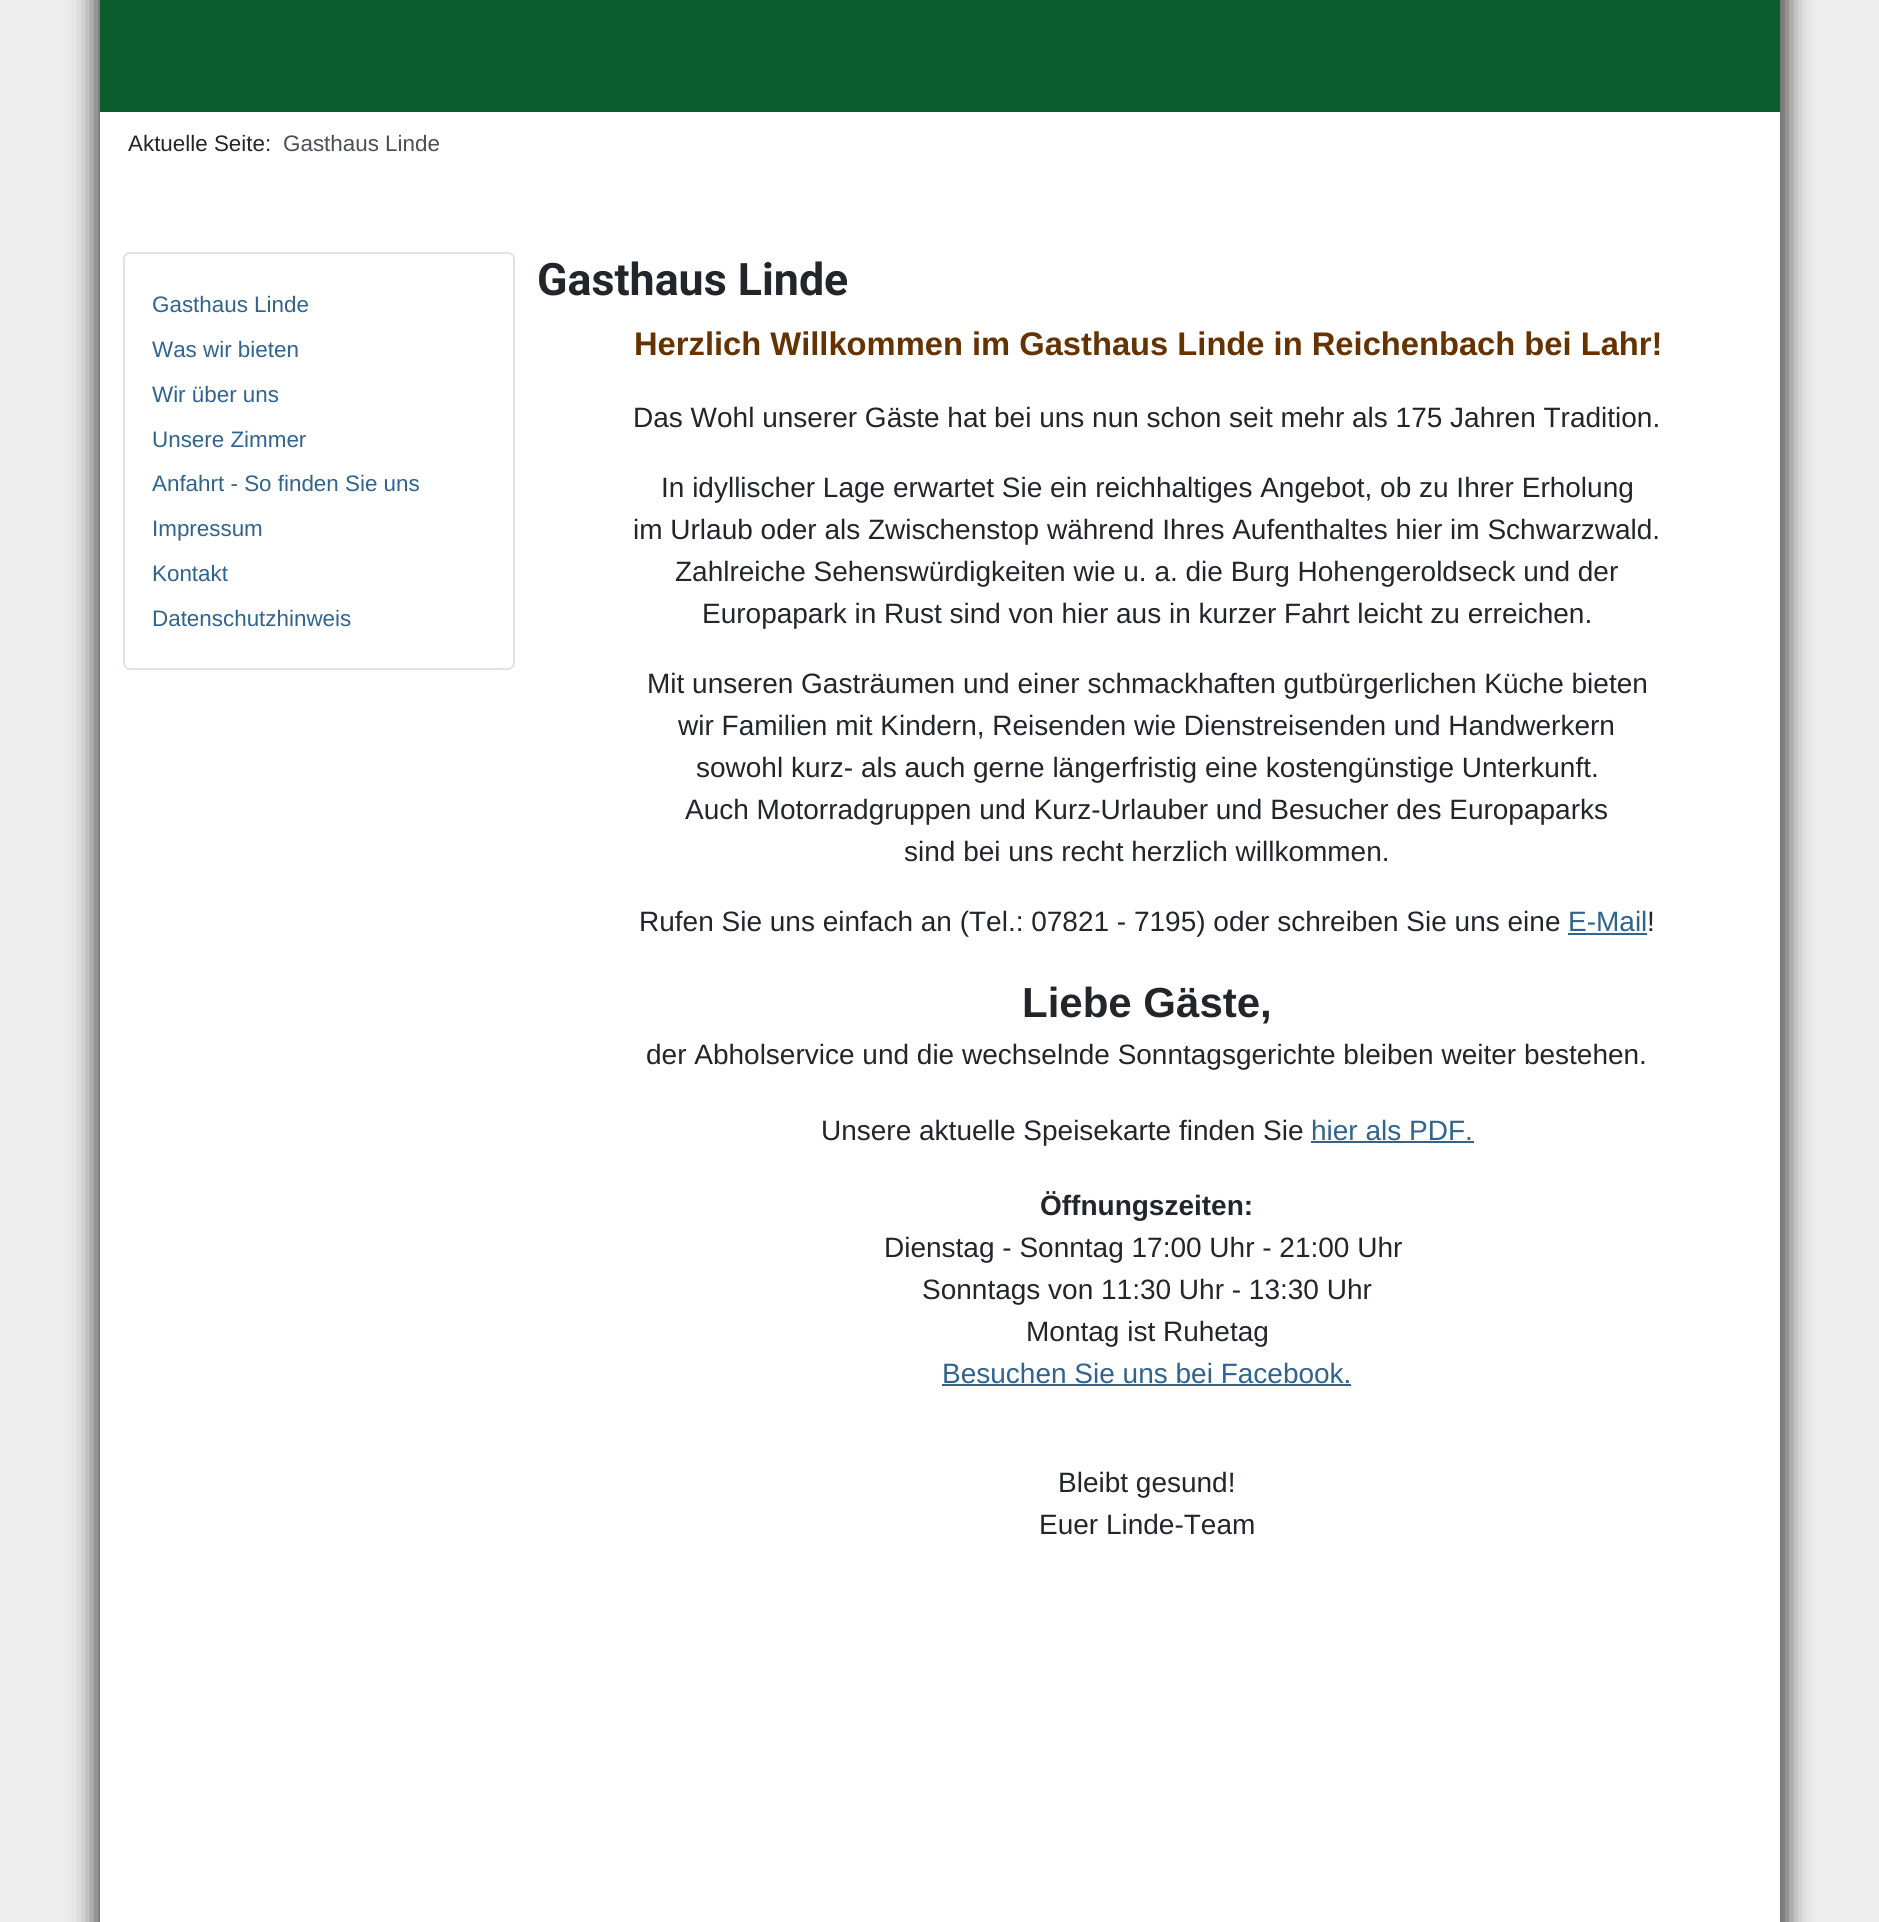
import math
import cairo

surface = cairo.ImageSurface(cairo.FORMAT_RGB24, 1879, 1922)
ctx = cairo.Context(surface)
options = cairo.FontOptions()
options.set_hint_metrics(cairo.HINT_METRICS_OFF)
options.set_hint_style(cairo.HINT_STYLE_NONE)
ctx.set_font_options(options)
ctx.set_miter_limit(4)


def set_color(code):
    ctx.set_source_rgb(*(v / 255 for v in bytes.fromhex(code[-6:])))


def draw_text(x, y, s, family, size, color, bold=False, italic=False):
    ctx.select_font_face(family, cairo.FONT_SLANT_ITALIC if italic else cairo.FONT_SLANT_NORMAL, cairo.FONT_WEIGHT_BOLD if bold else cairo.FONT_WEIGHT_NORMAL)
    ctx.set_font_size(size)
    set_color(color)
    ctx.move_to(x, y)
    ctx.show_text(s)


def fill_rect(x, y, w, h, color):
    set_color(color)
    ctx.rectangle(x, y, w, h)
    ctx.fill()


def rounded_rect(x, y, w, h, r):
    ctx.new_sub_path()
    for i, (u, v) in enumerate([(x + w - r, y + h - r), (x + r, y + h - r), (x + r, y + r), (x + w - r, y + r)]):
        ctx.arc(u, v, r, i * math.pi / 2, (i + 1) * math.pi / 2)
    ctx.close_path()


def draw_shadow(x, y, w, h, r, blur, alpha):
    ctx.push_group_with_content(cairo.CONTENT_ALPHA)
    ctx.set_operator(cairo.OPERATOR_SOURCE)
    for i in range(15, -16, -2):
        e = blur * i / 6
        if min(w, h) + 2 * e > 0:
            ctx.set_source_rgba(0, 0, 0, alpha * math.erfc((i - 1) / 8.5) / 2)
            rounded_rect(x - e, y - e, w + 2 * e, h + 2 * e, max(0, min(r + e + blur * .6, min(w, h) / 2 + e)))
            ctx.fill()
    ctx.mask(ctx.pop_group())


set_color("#eeeeee")
ctx.paint()
set_color("#000000")
draw_shadow(96, -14, 1691, 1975, 0, 13, 0.75)
fill_rect(100, 112, 1680, 1810, "#ffffff")
fill_rect(100, 0, 1680, 112, "#0a5e2d")
draw_text(128, 151, "Aktuelle Seite:", "Liberation Sans", 22.4, "#22262a")
draw_text(283, 151, "Gasthaus Linde", "Liberation Sans", 22.4, "#484f56")
rounded_rect(124, 253, 390, 416, 6)
set_color("#dfe3e7")
ctx.stroke()
draw_text(152, 312, "Gasthaus Linde", "Liberation Sans", 22.4, "#30638d")
draw_text(152, 357, "Was wir bieten", "Liberation Sans", 22.4, "#30638d")
draw_text(152, 402, "Wir über uns", "Liberation Sans", 22.4, "#30638d")
draw_text(152, 447, "Unsere Zimmer", "Liberation Sans", 22.4, "#30638d")
draw_text(152, 491, "Anfahrt - So finden Sie uns", "Liberation Sans", 22.4, "#30638d")
draw_text(152, 536, "Impressum", "Liberation Sans", 22.4, "#30638d")
draw_text(152, 581, "Kontakt", "Liberation Sans", 22.4, "#30638d")
draw_text(152, 626, "Datenschutzhinweis", "Liberation Sans", 22.4, "#30638d")
draw_text(537, 295, "Gasthaus Linde", "Roboto", 44.75, "#22262a", bold=True)
draw_text(634, 355, "Herzlich Willkommen im Gasthaus Linde in Reichenbach bei Lahr!", "Liberation Sans", 32.7, "#663300", bold=True)
draw_text(633, 427, "Das Wohl unserer Gäste hat bei uns nun schon seit mehr als 175 Jahren Tradition.", "Liberation Sans", 28, "#22262a")
draw_text(661, 497, "In idyllischer Lage erwartet Sie ein reichhaltiges Angebot, ob zu Ihrer Erholung", "Liberation Sans", 28, "#22262a")
draw_text(633, 539, "im Urlaub oder als Zwischenstop während Ihres Aufenthaltes hier im Schwarzwald.", "Liberation Sans", 28, "#22262a")
draw_text(675, 581, "Zahlreiche Sehenswürdigkeiten wie u. a. die Burg Hohengeroldseck und der", "Liberation Sans", 28, "#22262a")
draw_text(702, 623, "Europapark in Rust sind von hier aus in kurzer Fahrt leicht zu erreichen.", "Liberation Sans", 28, "#22262a")
draw_text(647, 693, "Mit unseren Gasträumen und einer schmackhaften gutbürgerlichen Küche bieten", "Liberation Sans", 28, "#22262a")
draw_text(678, 735, "wir Familien mit Kindern, Reisenden wie Dienstreisenden und Handwerkern", "Liberation Sans", 28, "#22262a")
draw_text(696, 777, "sowohl kurz- als auch gerne längerfristig eine kostengünstige Unterkunft.", "Liberation Sans", 28, "#22262a")
draw_text(685, 819, "Auch Motorradgruppen und Kurz-Urlauber und Besucher des Europaparks", "Liberation Sans", 28, "#22262a")
draw_text(904, 861, "sind bei uns recht herzlich willkommen.", "Liberation Sans", 28, "#22262a")
draw_text(639, 931, "Rufen Sie uns einfach an (Tel.: 07821 - 7195) oder schreiben Sie uns eine", "Liberation Sans", 28, "#22262a")
draw_text(1568, 931, "E-Mail", "Liberation Sans", 28, "#30638d")
fill_rect(1568, 933, 79, 2, "#30638d")
draw_text(1647, 931, "!", "Liberation Sans", 28, "#22262a")
draw_text(1022, 1017, "Liebe Gäste,", "Liberation Sans", 42, "#22262a", bold=True)
draw_text(646, 1064, "der Abholservice und die wechselnde Sonntagsgerichte bleiben weiter bestehen.", "Liberation Sans", 28, "#22262a")
draw_text(821, 1140, "Unsere aktuelle Speisekarte finden Sie", "Liberation Sans", 28, "#22262a")
draw_text(1311, 1140, "hier als PDF.", "Liberation Sans", 28, "#30638d")
fill_rect(1311, 1141, 163, 2, "#30638d")
draw_text(1040, 1215, "Öffnungszeiten:", "Liberation Sans", 28, "#22262a", bold=True)
draw_text(884, 1257, "Dienstag - Sonntag 17:00 Uhr - 21:00 Uhr", "Liberation Sans", 28, "#22262a")
draw_text(922, 1299, "Sonntags von 11:30 Uhr - 13:30 Uhr", "Liberation Sans", 28, "#22262a")
draw_text(1026, 1341, "Montag ist Ruhetag", "Liberation Sans", 28, "#22262a")
draw_text(942, 1383, "Besuchen Sie uns bei Facebook.", "Liberation Sans", 28, "#30638d")
fill_rect(942, 1384, 409, 2, "#30638d")
draw_text(1058, 1492, "Bleibt gesund!", "Liberation Sans", 28, "#22262a")
draw_text(1039, 1534, "Euer Linde-Team", "Liberation Sans", 28, "#22262a")
surface.write_to_png("output.png")
